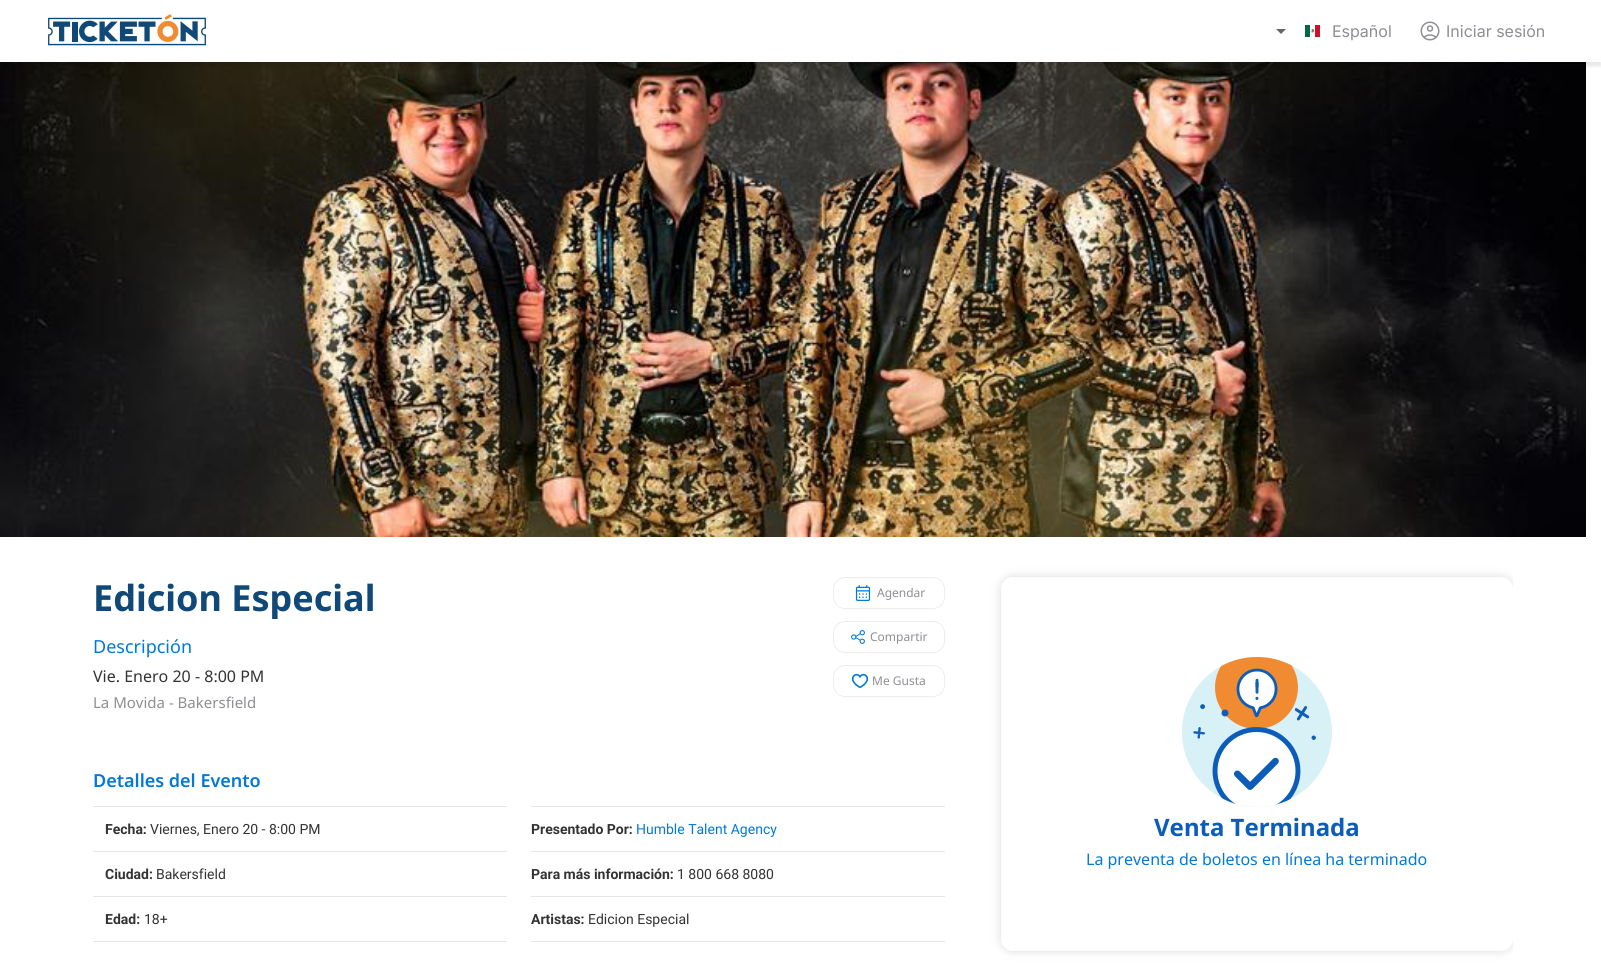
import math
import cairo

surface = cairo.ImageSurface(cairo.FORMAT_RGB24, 1601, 970)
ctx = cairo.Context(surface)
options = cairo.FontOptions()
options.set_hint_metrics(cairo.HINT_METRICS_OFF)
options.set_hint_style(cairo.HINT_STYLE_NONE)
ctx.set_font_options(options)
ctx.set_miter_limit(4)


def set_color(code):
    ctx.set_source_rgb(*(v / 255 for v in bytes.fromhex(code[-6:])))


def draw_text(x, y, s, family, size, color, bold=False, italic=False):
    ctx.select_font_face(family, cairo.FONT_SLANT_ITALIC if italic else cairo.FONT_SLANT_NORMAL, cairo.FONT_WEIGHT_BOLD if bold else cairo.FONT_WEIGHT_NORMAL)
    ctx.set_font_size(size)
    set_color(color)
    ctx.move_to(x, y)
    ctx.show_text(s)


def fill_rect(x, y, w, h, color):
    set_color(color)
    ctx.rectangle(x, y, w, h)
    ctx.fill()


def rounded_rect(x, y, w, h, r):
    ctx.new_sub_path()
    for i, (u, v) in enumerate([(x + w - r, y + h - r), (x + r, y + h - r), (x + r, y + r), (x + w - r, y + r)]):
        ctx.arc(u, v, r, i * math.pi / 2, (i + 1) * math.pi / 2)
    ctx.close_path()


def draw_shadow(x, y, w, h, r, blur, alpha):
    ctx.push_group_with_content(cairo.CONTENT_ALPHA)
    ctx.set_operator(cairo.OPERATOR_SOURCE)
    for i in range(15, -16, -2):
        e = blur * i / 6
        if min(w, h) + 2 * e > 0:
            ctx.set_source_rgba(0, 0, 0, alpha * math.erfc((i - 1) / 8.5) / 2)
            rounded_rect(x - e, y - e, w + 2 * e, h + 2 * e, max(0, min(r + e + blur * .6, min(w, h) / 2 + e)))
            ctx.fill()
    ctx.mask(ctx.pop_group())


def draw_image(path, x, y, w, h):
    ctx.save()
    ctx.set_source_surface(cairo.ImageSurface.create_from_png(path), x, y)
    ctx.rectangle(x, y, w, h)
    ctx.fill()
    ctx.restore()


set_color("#ffffff")
ctx.paint()
draw_image("assets/img4.png", 0, 62, 1586, 475)
ctx.save()
ctx.rectangle(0, 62, 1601, 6)
ctx.clip()
set_color("#000000")
draw_shadow(0, 4, 1601, 62, 0, 2, 0.1)
ctx.restore()
draw_image("assets/img1.png", 48, 14, 158, 32)
set_color("#666666")
ctx.new_path()
ctx.move_to(1276, 29)
ctx.line_to(1286, 29)
ctx.line_to(1281, 34)
ctx.close_path()
ctx.fill()
draw_image("assets/img2.png", 1305, 25, 15, 12)
draw_text(1332, 37, "Español", "Inter", 16, "#8e8e93")
draw_image("assets/img3.png", 1420, 21, 20, 20)
draw_text(1446, 37, "Iniciar sesión", "Inter", 16, "#8e8e93")
ctx.save()
ctx.rectangle(93, 577, 282, 42)
ctx.clip()
draw_text(93, 611, "Edicion Especial", "Noto Sans", 36, "#104977", bold=True)
ctx.restore()
draw_text(93, 653, "Descripción", "Noto Sans", 18, "#0079d9")
draw_text(93, 682, "Vie. Enero 20 - 8:00 PM", "Noto Sans", 16, "#333333")
draw_text(93, 708, "La Movida - Bakersfield", "Noto Sans", 15, "#8e8e93")
rounded_rect(833.5, 577.5, 111, 31, 11.5)
set_color("#ededef")
ctx.set_line_width(1)
ctx.stroke()
draw_image("assets/img5.png", 855, 585, 16, 16)
draw_text(877, 597, "Agendar", "Noto Sans", 12, "#8e8e93")
rounded_rect(833.5, 621.5, 111, 31, 11.5)
set_color("#ededef")
ctx.stroke()
draw_image("assets/img6.png", 851, 630, 14, 14)
draw_text(870, 641, "Compartir", "Noto Sans", 12, "#8e8e93")
rounded_rect(833.5, 665.5, 111, 31, 11.5)
set_color("#ededef")
ctx.stroke()
draw_image("assets/img7.png", 852, 673, 16, 15)
draw_text(872, 685, "Me Gusta", "Noto Sans", 12, "#8e8e93")
draw_text(93, 787, "Detalles del Evento", "Noto Sans SemiBold", 18, "#0079d9")
fill_rect(93, 806, 414, 1, "#e5e5ea")
draw_text(105, 834, "Fecha:", "Roboto", 14, "#333333", bold=True)
draw_text(150, 834, "Viernes, Enero 20 - 8:00 PM", "Roboto", 14, "#333333")
fill_rect(93, 851, 414, 1, "#e5e5ea")
draw_text(105, 879, "Ciudad:", "Roboto", 14, "#333333", bold=True)
draw_text(156, 879, "Bakersfield", "Roboto", 14, "#333333")
fill_rect(93, 896, 414, 1, "#e5e5ea")
draw_text(105, 924, "Edad:", "Roboto", 14, "#333333", bold=True)
draw_text(144, 924, "18+", "Roboto", 14, "#333333")
fill_rect(93, 941, 414, 1, "#e5e5ea")
fill_rect(531, 806, 414, 1, "#e5e5ea")
draw_text(531, 834, "Presentado Por:", "Roboto", 14, "#333333", bold=True)
draw_text(636, 834, "Humble Talent Agency", "Roboto", 14, "#0079d9")
fill_rect(531, 851, 414, 1, "#e5e5ea")
draw_text(531, 879, "Para más información:", "Roboto", 14, "#333333", bold=True)
draw_text(677, 879, "1 800 668 8080", "Roboto", 14, "#333333")
fill_rect(531, 896, 414, 1, "#e5e5ea")
draw_text(531, 924, "Artistas:", "Roboto", 14, "#333333", bold=True)
draw_text(588, 924, "Edicion Especial", "Roboto", 14, "#333333")
fill_rect(531, 941, 414, 1, "#e5e5ea")
fill_rect(1001, 537, 512, 6, "#fcfcfc")
set_color("#ffffff")
rounded_rect(1001, 537, 512, 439, 6)
ctx.fill()
ctx.save()
ctx.rectangle(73, 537, 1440, 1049)
ctx.clip()
ctx.set_fill_rule(cairo.FILL_RULE_EVEN_ODD)
ctx.new_path()
ctx.move_to(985, 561)
ctx.line_to(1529, 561)
ctx.line_to(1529, 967)
ctx.line_to(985, 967)
ctx.close_path()
ctx.move_to(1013, 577)
ctx.line_to(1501, 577)
ctx.curve_to(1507.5, 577, 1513, 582.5, 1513, 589)
ctx.line_to(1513, 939)
ctx.curve_to(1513, 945.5, 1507.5, 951, 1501, 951)
ctx.line_to(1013, 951)
ctx.curve_to(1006.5, 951, 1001, 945.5, 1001, 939)
ctx.line_to(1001, 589)
ctx.curve_to(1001, 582.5, 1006.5, 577, 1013, 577)
ctx.close_path()
ctx.clip()
set_color("#404045")
draw_shadow(1001, 577, 512, 374, 12, 5, 0.2)
ctx.restore()
draw_image("assets/img8.png", 1182, 657, 150, 150)
draw_text(1154, 836, "Venta Terminada", "Noto Sans", 24, "#0c5db9", bold=True)
draw_text(1086, 865, "La preventa de boletos en línea ha terminado", "Noto Sans", 16, "#0079d9")
surface.write_to_png("output.png")
